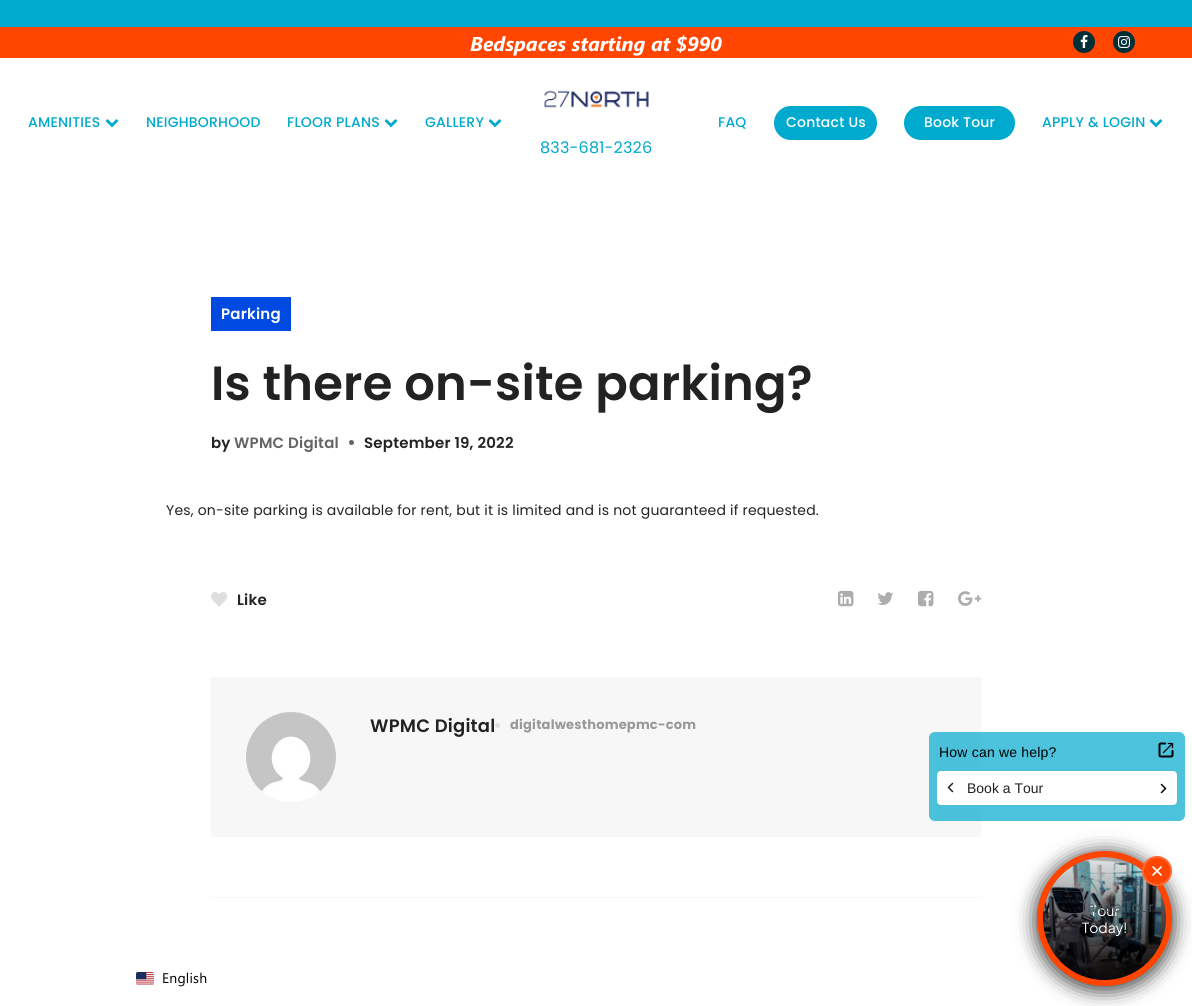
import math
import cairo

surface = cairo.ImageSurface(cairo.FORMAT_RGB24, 1192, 1006)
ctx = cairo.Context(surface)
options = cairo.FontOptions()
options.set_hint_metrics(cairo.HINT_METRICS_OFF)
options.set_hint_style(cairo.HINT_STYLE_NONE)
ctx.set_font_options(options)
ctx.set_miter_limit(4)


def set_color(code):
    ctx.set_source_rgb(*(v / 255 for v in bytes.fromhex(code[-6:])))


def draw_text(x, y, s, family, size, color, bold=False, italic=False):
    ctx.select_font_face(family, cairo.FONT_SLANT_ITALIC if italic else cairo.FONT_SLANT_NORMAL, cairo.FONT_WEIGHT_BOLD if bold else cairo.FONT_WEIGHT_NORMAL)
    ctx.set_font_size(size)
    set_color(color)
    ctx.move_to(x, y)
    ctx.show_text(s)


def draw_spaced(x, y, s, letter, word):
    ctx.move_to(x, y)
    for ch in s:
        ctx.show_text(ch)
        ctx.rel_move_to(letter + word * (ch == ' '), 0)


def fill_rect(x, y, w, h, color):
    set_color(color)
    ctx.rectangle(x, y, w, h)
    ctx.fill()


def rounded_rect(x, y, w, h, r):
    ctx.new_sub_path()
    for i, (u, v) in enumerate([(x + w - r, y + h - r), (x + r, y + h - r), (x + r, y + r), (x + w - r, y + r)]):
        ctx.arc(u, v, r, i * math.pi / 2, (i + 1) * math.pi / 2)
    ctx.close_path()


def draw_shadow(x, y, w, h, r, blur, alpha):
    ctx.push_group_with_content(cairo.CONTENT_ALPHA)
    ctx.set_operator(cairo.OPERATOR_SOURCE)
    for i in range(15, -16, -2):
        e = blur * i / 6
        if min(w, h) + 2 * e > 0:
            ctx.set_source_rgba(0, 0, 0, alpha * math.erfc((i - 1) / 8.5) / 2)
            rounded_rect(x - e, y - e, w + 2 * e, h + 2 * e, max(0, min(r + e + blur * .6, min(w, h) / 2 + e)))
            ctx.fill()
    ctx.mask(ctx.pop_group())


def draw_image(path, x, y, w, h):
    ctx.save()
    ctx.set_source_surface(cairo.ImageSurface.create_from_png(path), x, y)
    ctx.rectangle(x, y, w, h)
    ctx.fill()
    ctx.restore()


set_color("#ffffff")
ctx.paint()
fill_rect(0, 0, 1192, 27, "#00a9ce")
fill_rect(0, 27, 1192, 31, "#ff4500")
set_color("#002f37")
ctx.arc(1084, 42, 11, 0, 2 * math.pi)
ctx.fill()
draw_image("assets/img1.png", 1080, 35, 8, 13)
ctx.arc(1124, 42, 11, 0, 2 * math.pi)
ctx.fill()
draw_image("assets/img2.png", 1118, 36, 12, 12)
draw_text(470, 51, "Bedspaces starting at $990", "Segoe UI", 20, "#ffffff", bold=True, italic=True)
ctx.select_font_face("Poppins Medium")
ctx.set_font_size(14)
set_color("#00a9ce")
draw_spaced(28, 127, "AMENITIES", 0.2, 0)
draw_image("assets/img3.png", 105, 119, 14, 9)
draw_spaced(146, 127, "NEIGHBORHOOD", 0.2, 0)
draw_spaced(287, 127, "FLOOR PLANS", 0.2, 0)
draw_image("assets/img3.png", 384, 119, 14, 9)
draw_spaced(425, 127, "GALLERY", 0.2, 0)
draw_image("assets/img3.png", 488, 119, 14, 9)
draw_spaced(718, 127, "FAQ", 0.2, 0)
rounded_rect(774, 106, 103, 34, 17)
ctx.fill()
set_color("#ffffff")
draw_spaced(786, 127, "Contact Us", 0.2, 0)
set_color("#00a9ce")
rounded_rect(904, 106, 111, 34, 17)
ctx.fill()
set_color("#ffffff")
draw_spaced(924, 127, "Book Tour", 0.2, 0)
set_color("#00a9ce")
draw_spaced(1042, 127, "APPLY & LOGIN", 0.2, 0)
draw_image("assets/img3.png", 1149, 119, 14, 9)
draw_image("assets/img4.png", 544, 90, 105, 18)
ctx.select_font_face("Poppins")
ctx.set_font_size(16)
draw_spaced(540, 153, "833-681-2326", 0.2, 0)
fill_rect(211, 297, 80, 34, "#004ae2")
ctx.select_font_face("Poppins SemiBold")
ctx.set_font_size(15)
set_color("#ffffff")
draw_spaced(221, 319, "Parking", 0.2, 0)
ctx.set_font_size(48)
set_color("#222222")
draw_spaced(211, 400, "Is there on-site parking?", 0.2, 0)
ctx.set_font_size(15)
draw_spaced(211, 448, "by", 0.2, 0)
set_color("#646464")
draw_spaced(234, 448, "WPMC Digital", 0.2, 0)
ctx.new_path()
ctx.arc(351.5, 442.5, 2.5, 0, 2 * math.pi)
ctx.fill()
set_color("#222222")
draw_spaced(364, 448, "September 19, 2022", 0.2, 0)
ctx.select_font_face("Poppins")
ctx.set_font_size(14)
draw_spaced(166, 515, "Yes, on-site parking is available for rent, but it is limited and is not guaranteed if requested.", 0.2, 0)
draw_image("assets/img5.png", 211, 592, 17, 15)
ctx.select_font_face("Poppins SemiBold")
ctx.set_font_size(15)
draw_spaced(237, 605, "Like", 0.2, 0)
draw_image("assets/img6.png", 838, 590, 16, 17)
draw_image("assets/img7.png", 877, 592, 16, 13)
draw_image("assets/img8.png", 918, 590, 16, 17)
draw_image("assets/img9.png", 958, 591, 24, 15)
fill_rect(211, 677, 770, 160, "#f7f7f7")
draw_image("assets/img10.png", 246, 712, 90, 90)
ctx.set_font_size(18)
set_color("#222222")
draw_spaced(370, 732, "WPMC Digital", 0.2, 0)
set_color("#dfdede")
ctx.new_path()
ctx.arc(497.5, 725.5, 2.5, 0, 2 * math.pi)
ctx.fill()
ctx.select_font_face("Poppins", cairo.FONT_SLANT_NORMAL, cairo.FONT_WEIGHT_BOLD)
ctx.set_font_size(13)
set_color("#999999")
draw_spaced(510, 729, "digitalwesthomepmc-com", 0.2, 0)
fill_rect(211, 897, 770, 1, "#f7f7f7")
ctx.set_source_rgba(0, 0.663, 0.808, 0.7)
rounded_rect(929, 732, 256, 89, 6)
ctx.fill()
ctx.select_font_face("Liberation Sans")
ctx.set_font_size(14)
set_color("#000000")
draw_spaced(939, 757, "How can we help?", 0.2, 0)
draw_image("assets/img11.png", 1158, 742, 16, 16)
set_color("#ffffff")
rounded_rect(937, 771, 240, 34, 4)
ctx.fill()
ctx.new_path()
ctx.move_to(952.5, 791.5)
ctx.line_to(948.5, 787.5)
ctx.line_to(952.5, 783.5)
set_color("#222222")
ctx.set_line_width(1.5)
ctx.set_line_cap(cairo.LINE_CAP_ROUND)
ctx.set_line_join(cairo.LINE_JOIN_ROUND)
ctx.stroke()
draw_text(967, 793, "Book a Tour", "Liberation Sans", 14, "#222222")
ctx.new_path()
ctx.move_to(1161.5, 784.5)
ctx.line_to(1165.5, 788.5)
ctx.line_to(1161.5, 792.5)
set_color("#000000")
ctx.stroke()
set_color("#000000")
draw_shadow(1037, 854, 135, 135, 67.5, 10, 0.5)
draw_shadow(1037, 854, 135, 135, 67.5, 10, 0.5)
set_color("#ff4500")
ctx.arc(1104.5, 918.5, 64.5, 0, 2 * math.pi)
ctx.fill_preserve()
ctx.set_line_width(6)
ctx.set_line_cap(cairo.LINE_CAP_BUTT)
ctx.set_line_join(cairo.LINE_JOIN_MITER)
ctx.stroke()
draw_image("assets/img12.png", 1043, 857, 123, 123)
gradient = cairo.LinearGradient(1105, 857, 1105, 980)
gradient.add_color_stop_rgba(0, 0, 0, 0, 0.09)
gradient.add_color_stop_rgba(1, 0, 0, 0, 0.9)
ctx.set_source(gradient)
ctx.arc(1104.5, 918.5, 61.5, 0, 2 * math.pi)
ctx.fill()
set_color("#ff4500")
ctx.arc(1157, 871, 15, 0, 2 * math.pi)
ctx.fill()
ctx.arc(1157, 871, 14, 0, 2 * math.pi)
ctx.set_source_rgba(1, 1, 1, 0.18)
ctx.set_line_width(2)
ctx.stroke()
ctx.new_path()
ctx.move_to(1153, 875)
ctx.line_to(1161, 867)
ctx.move_to(1153, 867)
ctx.line_to(1161, 875)
set_color("#ffffff")
ctx.set_line_width(1.7)
ctx.set_line_cap(cairo.LINE_CAP_ROUND)
ctx.set_line_join(cairo.LINE_JOIN_ROUND)
ctx.stroke()
draw_text(1090, 916, "Tour", "Plus Jakarta Sans", 14, "#ffffff")
draw_text(1080, 912, "Take a Tour", "Plus Jakarta Sans", 14, "#4b585e")
draw_text(1082, 933, "Today!", "Plus Jakarta Sans", 14, "#ffffff")
draw_image("assets/img13.png", 136, 972, 18, 13)
ctx.select_font_face("Segoe UI")
set_color("#000000")
draw_spaced(162, 983, "English", 0.2, 0)
surface.write_to_png("output.png")
